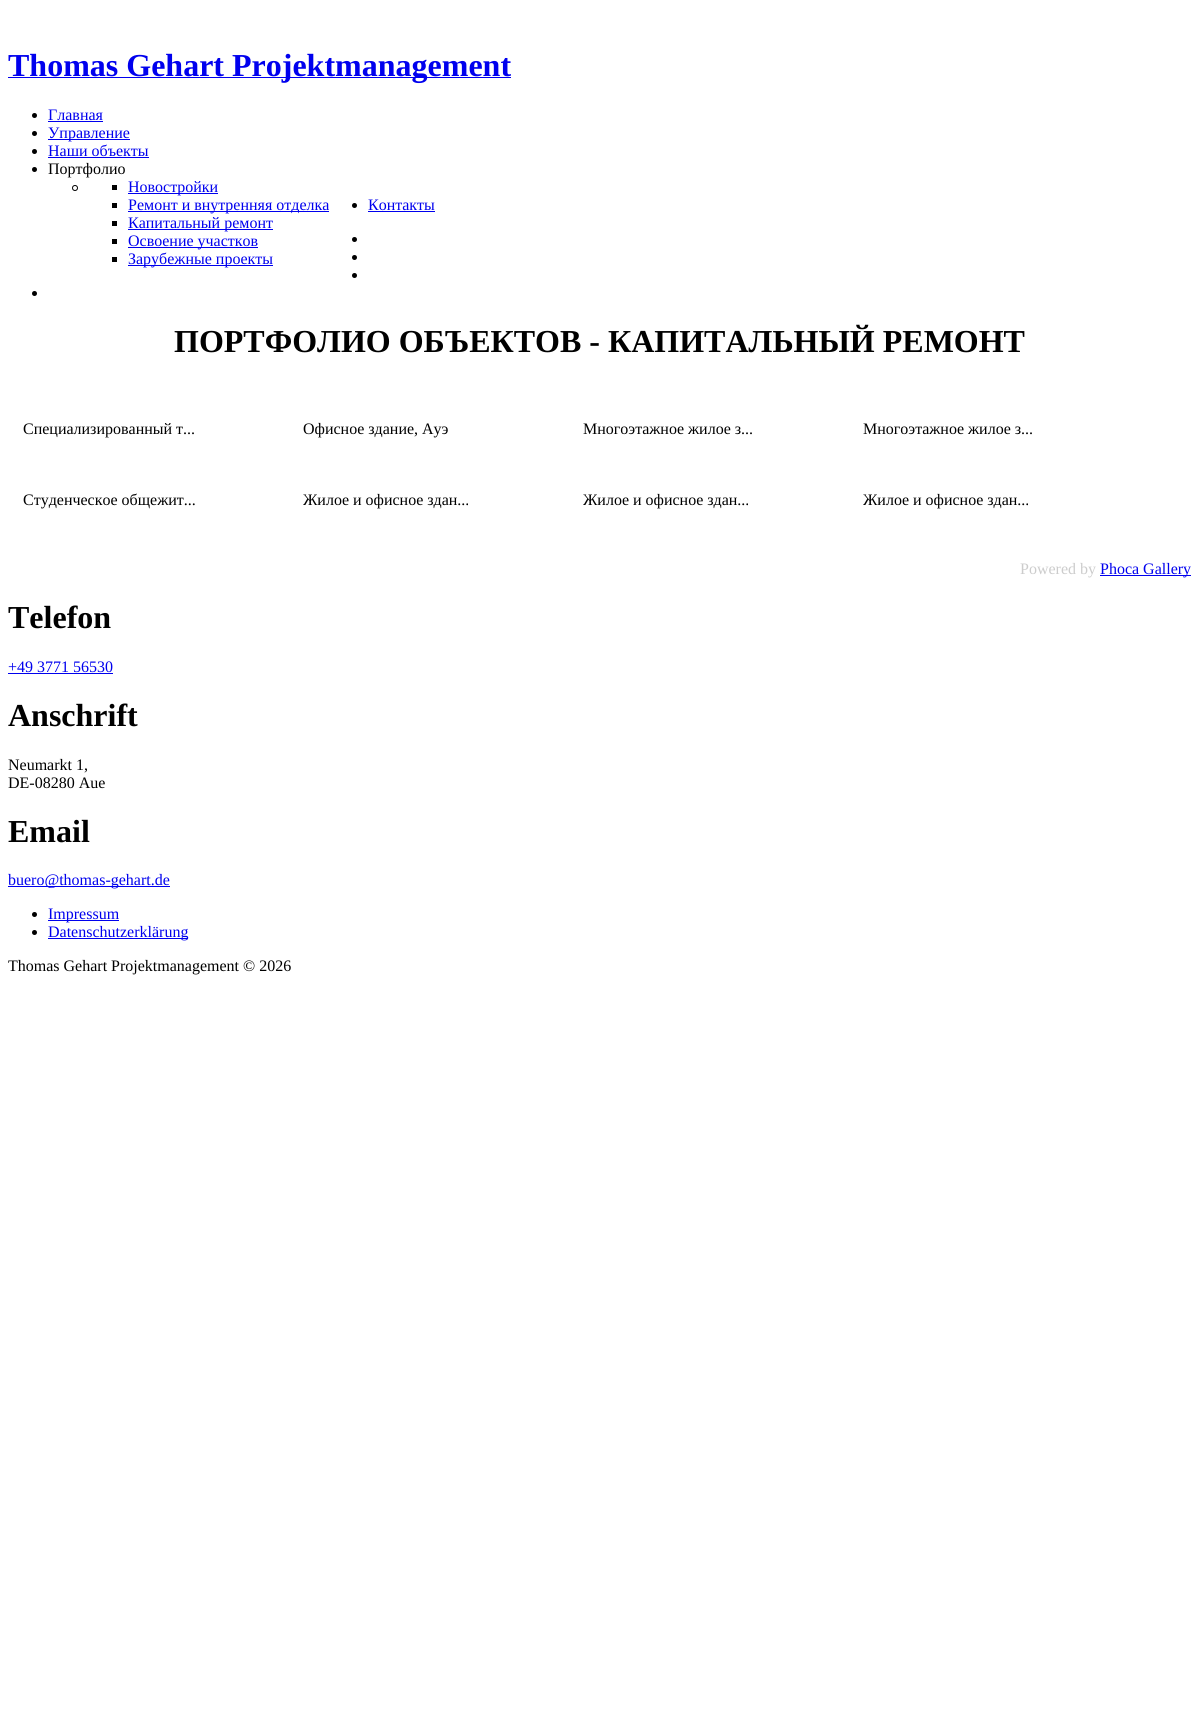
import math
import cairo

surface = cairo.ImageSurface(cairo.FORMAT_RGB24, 1199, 1716)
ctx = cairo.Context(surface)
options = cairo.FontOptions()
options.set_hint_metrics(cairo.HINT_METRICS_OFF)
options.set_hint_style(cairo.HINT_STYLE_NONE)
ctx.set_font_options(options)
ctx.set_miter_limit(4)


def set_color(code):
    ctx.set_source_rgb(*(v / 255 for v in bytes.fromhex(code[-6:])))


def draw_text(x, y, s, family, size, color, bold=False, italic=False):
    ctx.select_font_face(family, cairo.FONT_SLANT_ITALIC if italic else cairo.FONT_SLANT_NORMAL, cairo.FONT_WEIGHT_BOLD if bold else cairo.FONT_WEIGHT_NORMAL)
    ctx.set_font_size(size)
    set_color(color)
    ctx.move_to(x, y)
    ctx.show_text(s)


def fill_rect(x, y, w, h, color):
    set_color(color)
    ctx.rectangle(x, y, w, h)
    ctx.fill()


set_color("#ffffff")
ctx.paint()
fill_rect(8, 77, 503, 1, "#0000ee")
draw_text(8, 76, "Thomas Gehart Projektmanagement", "Liberation Serif", 32, "#0000ee", bold=True)
set_color("#000000")
ctx.new_path()
ctx.arc(34.5, 115.5, 2.5, 0, 2 * math.pi)
ctx.fill()
draw_text(48, 120, "Главная", "Liberation Serif", 16, "#0000ee")
fill_rect(48, 121, 55, 1, "#0000ee")
set_color("#000000")
ctx.new_path()
ctx.arc(34.5, 133.5, 2.5, 0, 2 * math.pi)
ctx.fill()
fill_rect(48, 139, 82, 1, "#0000ee")
draw_text(48, 138, "Управление", "Liberation Serif", 16, "#0000ee")
set_color("#000000")
ctx.new_path()
ctx.arc(34.5, 151.5, 2.5, 0, 2 * math.pi)
ctx.fill()
draw_text(48, 156, "Наши объекты", "Liberation Serif", 16, "#0000ee")
fill_rect(48, 157, 101, 1, "#0000ee")
set_color("#000000")
ctx.new_path()
ctx.arc(34.5, 169.5, 2.5, 0, 2 * math.pi)
ctx.fill()
draw_text(48, 174, "Портфолио", "Liberation Serif", 16, "#000000")
ctx.new_path()
ctx.arc(75, 188, 2.5, 0, 2 * math.pi)
ctx.set_line_width(1)
ctx.stroke()
fill_rect(112, 185, 5, 5, "#000000")
fill_rect(128, 193, 90, 1, "#0000ee")
draw_text(128, 192, "Новостройки", "Liberation Serif", 16, "#0000ee")
fill_rect(112, 203, 5, 5, "#000000")
fill_rect(128, 211, 201, 1, "#0000ee")
draw_text(128, 210, "Ремонт и внутренняя отделка", "Liberation Serif", 16, "#0000ee")
fill_rect(112, 221, 5, 5, "#000000")
fill_rect(128, 229, 145, 1, "#0000ee")
draw_text(128, 228, "Капитальный ремонт", "Liberation Serif", 16, "#0000ee")
fill_rect(112, 239, 5, 5, "#000000")
fill_rect(128, 247, 130, 1, "#0000ee")
draw_text(128, 246, "Освоение участков", "Liberation Serif", 16, "#0000ee")
fill_rect(112, 257, 5, 5, "#000000")
fill_rect(128, 265, 145, 1, "#0000ee")
draw_text(128, 264, "Зарубежные проекты", "Liberation Serif", 16, "#0000ee")
set_color("#000000")
ctx.new_path()
ctx.arc(354.5, 205.5, 2.5, 0, 2 * math.pi)
ctx.fill()
draw_text(368, 210, "Контакты", "Liberation Serif", 16, "#0000ee")
fill_rect(368, 211, 67, 1, "#0000ee")
set_color("#000000")
ctx.new_path()
ctx.arc(354.5, 239.5, 2.5, 0, 2 * math.pi)
ctx.fill()
ctx.arc(354.5, 257.5, 2.5, 0, 2 * math.pi)
ctx.fill()
ctx.arc(354.5, 275.5, 2.5, 0, 2 * math.pi)
ctx.fill()
ctx.arc(34.5, 293.5, 2.5, 0, 2 * math.pi)
ctx.fill()
draw_text(174, 352, "ПОРТФОЛИО ОБЪЕКТОВ - КАПИТАЛЬНЫЙ РЕМОНТ", "Liberation Serif", 32, "#000000", bold=True)
draw_text(23, 434, "Специализированный т...", "Liberation Serif", 16, "#000000")
draw_text(303, 434, "Офисное здание, Ауэ", "Liberation Serif", 16, "#000000")
draw_text(583, 434, "Многоэтажное жилое з...", "Liberation Serif", 16, "#000000")
draw_text(863, 434, "Многоэтажное жилое з...", "Liberation Serif", 16, "#000000")
draw_text(23, 505, "Студенческое общежит...", "Liberation Serif", 16, "#000000")
draw_text(303, 505, "Жилое и офисное здан...", "Liberation Serif", 16, "#000000")
draw_text(583, 505, "Жилое и офисное здан...", "Liberation Serif", 16, "#000000")
draw_text(863, 505, "Жилое и офисное здан...", "Liberation Serif", 16, "#000000")
draw_text(1020, 574, "Powered by", "Liberation Serif", 16, "#cccccc")
fill_rect(1100, 575, 91, 1, "#0000ee")
draw_text(1100, 574, "Phoca Gallery", "Liberation Serif", 16, "#0000ee")
draw_text(8, 628, "Telefon", "Liberation Serif", 32, "#000000", bold=True)
draw_text(8, 672, "+49 3771 56530", "Liberation Serif", 16, "#0000ee")
fill_rect(8, 673, 105, 1, "#0000ee")
draw_text(8, 726, "Anschrift", "Liberation Serif", 32, "#000000", bold=True)
draw_text(8, 770, "Neumarkt 1,", "Liberation Serif", 16, "#000000")
draw_text(8, 788, "DE-08280 Aue", "Liberation Serif", 16, "#000000")
draw_text(8, 842, "Email", "Liberation Serif", 32, "#000000", bold=True)
fill_rect(8, 886, 162, 1, "#0000ee")
draw_text(8, 885, "buero@thomas-gehart.de", "Liberation Serif", 16, "#0000ee")
set_color("#000000")
ctx.new_path()
ctx.arc(34.5, 914.5, 2.5, 0, 2 * math.pi)
ctx.fill()
fill_rect(48, 920, 71, 1, "#0000ee")
draw_text(48, 919, "Impressum", "Liberation Serif", 16, "#0000ee")
set_color("#000000")
ctx.new_path()
ctx.arc(34.5, 932.5, 2.5, 0, 2 * math.pi)
ctx.fill()
fill_rect(48, 938, 140, 1, "#0000ee")
draw_text(48, 937, "Datenschutzerklärung", "Liberation Serif", 16, "#0000ee")
draw_text(8, 971, "Thomas Gehart Projektmanagement © 2026", "Liberation Serif", 16, "#000000")
surface.write_to_png("output.png")
